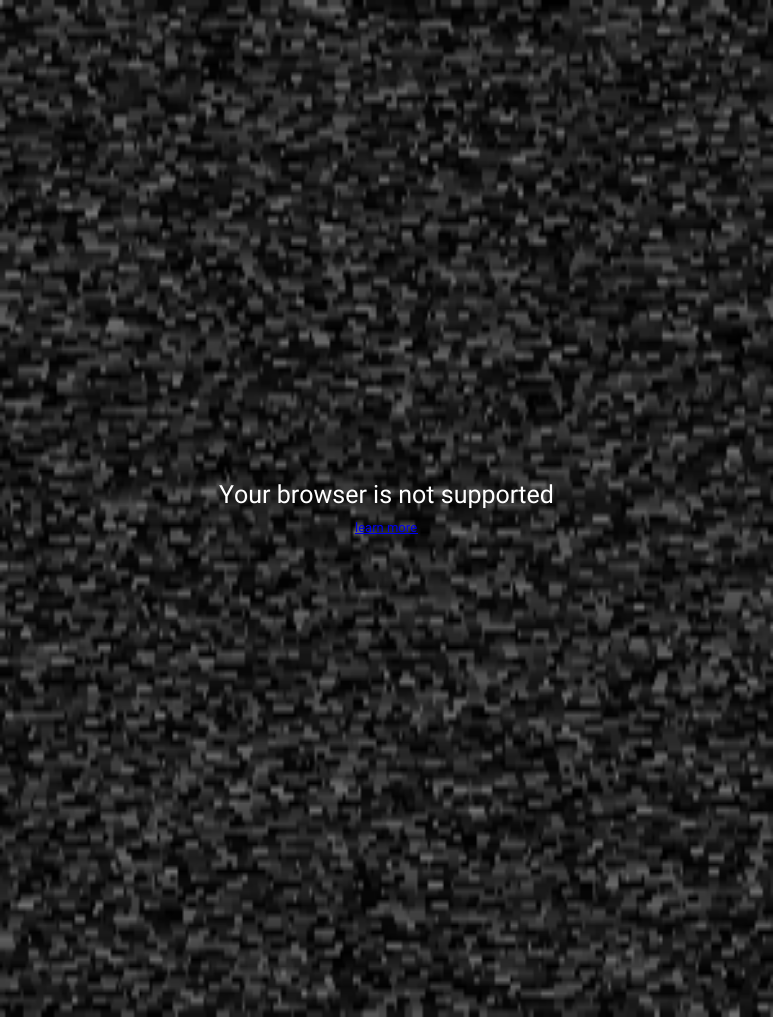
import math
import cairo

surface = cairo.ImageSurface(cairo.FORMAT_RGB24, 773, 1017)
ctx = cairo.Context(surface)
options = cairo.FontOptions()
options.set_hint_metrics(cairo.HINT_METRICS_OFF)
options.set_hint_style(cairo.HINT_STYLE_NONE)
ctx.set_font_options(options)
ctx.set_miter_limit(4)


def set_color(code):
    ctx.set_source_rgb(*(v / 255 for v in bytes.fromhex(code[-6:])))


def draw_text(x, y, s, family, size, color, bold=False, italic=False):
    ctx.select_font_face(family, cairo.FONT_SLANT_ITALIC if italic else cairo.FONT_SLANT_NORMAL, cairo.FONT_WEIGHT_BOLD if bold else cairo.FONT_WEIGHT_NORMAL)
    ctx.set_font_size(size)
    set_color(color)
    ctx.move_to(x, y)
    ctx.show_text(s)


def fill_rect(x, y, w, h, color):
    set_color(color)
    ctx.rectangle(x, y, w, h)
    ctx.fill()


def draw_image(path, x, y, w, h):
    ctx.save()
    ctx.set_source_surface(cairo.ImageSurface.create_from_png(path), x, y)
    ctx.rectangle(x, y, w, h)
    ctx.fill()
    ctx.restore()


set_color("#777777")
ctx.paint()
draw_image("assets/img1.png", 0, 0, 773, 1017)
draw_text(219, 503, "Your browser is not supported", "Roboto", 25, "#ffffff")
draw_text(355, 532, "learn more", "Roboto", 13, "#0000ee")
fill_rect(355, 533, 63, 1, "#0000ee")
surface.write_to_png("output.png")
